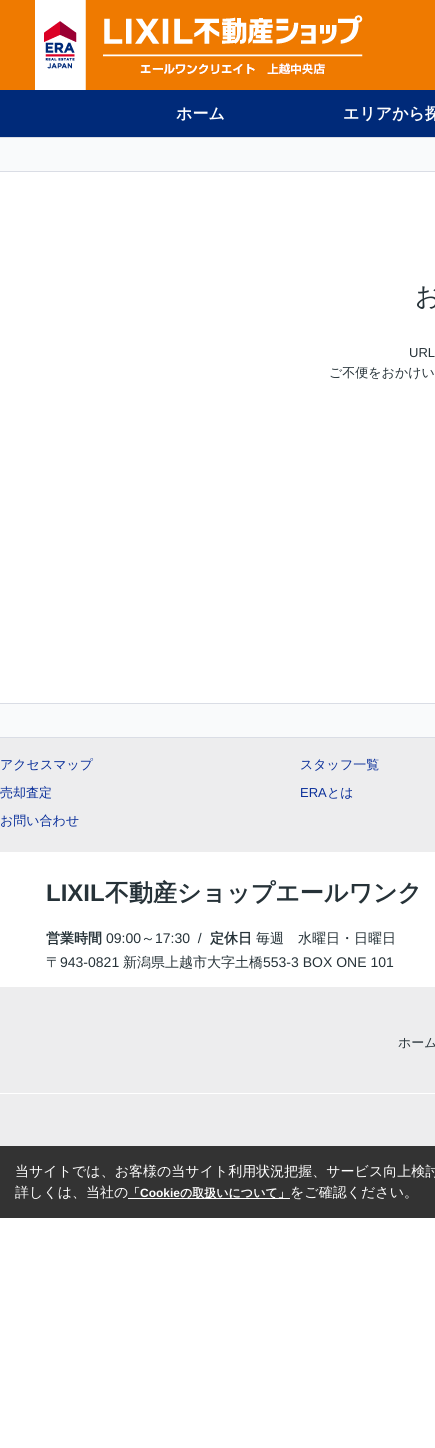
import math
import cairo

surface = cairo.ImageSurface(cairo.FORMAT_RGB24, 435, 1448)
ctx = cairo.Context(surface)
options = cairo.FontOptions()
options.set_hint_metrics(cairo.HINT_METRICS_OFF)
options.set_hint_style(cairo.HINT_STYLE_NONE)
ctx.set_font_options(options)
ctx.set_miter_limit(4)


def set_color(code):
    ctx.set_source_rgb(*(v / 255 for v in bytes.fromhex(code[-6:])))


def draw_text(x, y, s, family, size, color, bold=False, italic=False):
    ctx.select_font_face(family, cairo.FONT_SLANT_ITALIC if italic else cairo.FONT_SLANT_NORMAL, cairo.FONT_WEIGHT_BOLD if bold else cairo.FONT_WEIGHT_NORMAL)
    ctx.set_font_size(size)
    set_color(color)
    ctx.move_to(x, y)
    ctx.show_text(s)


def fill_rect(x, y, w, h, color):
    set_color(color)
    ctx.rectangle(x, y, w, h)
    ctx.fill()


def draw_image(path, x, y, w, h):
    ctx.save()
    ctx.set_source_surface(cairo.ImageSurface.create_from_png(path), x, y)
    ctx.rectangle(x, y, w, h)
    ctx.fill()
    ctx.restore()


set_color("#ffffff")
ctx.paint()
fill_rect(0, 0, 435, 90, "#ef7a00")
draw_image("assets/img1.png", 35, 0, 328, 90)
fill_rect(0, 90, 435, 47, "#002a79")
draw_text(176, 119, "ホーム", "WenQuanYi Zen Hei", 16, "#ffffff", bold=True)
draw_text(343, 119, "エリアから探", "WenQuanYi Zen Hei", 16, "#ffffff", bold=True)
fill_rect(0, 138, 435, 33, "#f9fafb")
fill_rect(0, 137, 435, 1, "#dadde5")
fill_rect(0, 171, 435, 1, "#dadde5")
draw_text(415, 305, "お", "WenQuanYi Zen Hei Medium", 26, "#263238")
draw_text(409, 357, "URL", "Liberation Sans", 13, "#263238")
draw_text(329, 377, "ご不便をおかけい", "WenQuanYi Zen Hei Medium", 13, "#263238")
fill_rect(0, 704, 435, 33, "#f9fafb")
fill_rect(0, 703, 435, 1, "#dadde5")
fill_rect(0, 737, 435, 1, "#dadde5")
fill_rect(0, 738, 435, 408, "#ededee")
draw_text(0, 769, "アクセスマップ", "WenQuanYi Zen Hei Medium", 13, "#0a2f9a")
draw_text(0, 797, "売却査定", "WenQuanYi Zen Hei Medium", 13, "#0a2f9a")
draw_text(0, 825, "お問い合わせ", "WenQuanYi Zen Hei Medium", 13, "#0a2f9a")
draw_text(300, 769, "スタッフ一覧", "WenQuanYi Zen Hei Medium", 13, "#0a2f9a")
draw_text(300, 797, "ERA", "Liberation Sans", 13, "#0a2f9a")
draw_text(327, 797, "とは", "WenQuanYi Zen Hei Medium", 13, "#0a2f9a")
fill_rect(0, 852, 435, 135, "#ffffff")
draw_text(46, 901, "LIXIL", "Liberation Sans", 24, "#263238", bold=True)
draw_text(105, 901, "不動産ショップエールワンク", "WenQuanYi Zen Hei", 24, "#263238", bold=True)
draw_text(46, 943, "営業時間", "WenQuanYi Zen Hei", 14, "#263238", bold=True)
draw_text(106, 943, "09:00", "Liberation Sans", 14, "#263238")
draw_text(141, 943, "～", "WenQuanYi Zen Hei Medium", 14, "#263238")
draw_text(155, 943, "17:30  /", "Liberation Sans", 14, "#263238")
draw_text(210, 943, "定休日", "WenQuanYi Zen Hei", 14, "#263238", bold=True)
draw_text(256, 943, "毎週　水曜日・日曜日", "WenQuanYi Zen Hei Medium", 14, "#263238")
draw_text(46, 967, "〒", "WenQuanYi Zen Hei Medium", 14, "#263238")
draw_text(60, 967, "943-0821", "Liberation Sans", 14, "#263238")
draw_text(123, 967, "新潟県上越市大字土橋", "WenQuanYi Zen Hei Medium", 14, "#263238")
draw_text(263, 967, "553-3 BOX ONE 101", "Liberation Sans", 14, "#263238")
draw_text(398, 1047, "ホーム", "WenQuanYi Zen Hei Medium", 13, "#263238")
fill_rect(0, 1093, 435, 1, "#ffffff")
fill_rect(0, 1146, 435, 72, "#333333")
draw_text(15, 1176, "当サイトでは、お客様の当サイト利用状況把握、サービス向上検討", "WenQuanYi Zen Hei Medium", 14, "#ffffff")
draw_text(15, 1197, "詳しくは、当社の", "WenQuanYi Zen Hei Medium", 14, "#ffffff")
draw_text(128, 1197, "「", "WenQuanYi Zen Hei", 12, "#ffffff", bold=True)
draw_text(140, 1197, "Cookie", "Liberation Sans", 12, "#ffffff", bold=True)
fill_rect(128, 1198, 162, 1, "#ffffff")
draw_text(180, 1197, "の取扱いについて」", "WenQuanYi Zen Hei", 12, "#ffffff", bold=True)
draw_text(290, 1197, "をご確認ください。", "WenQuanYi Zen Hei Medium", 14, "#ffffff")
surface.write_to_png("output.png")
